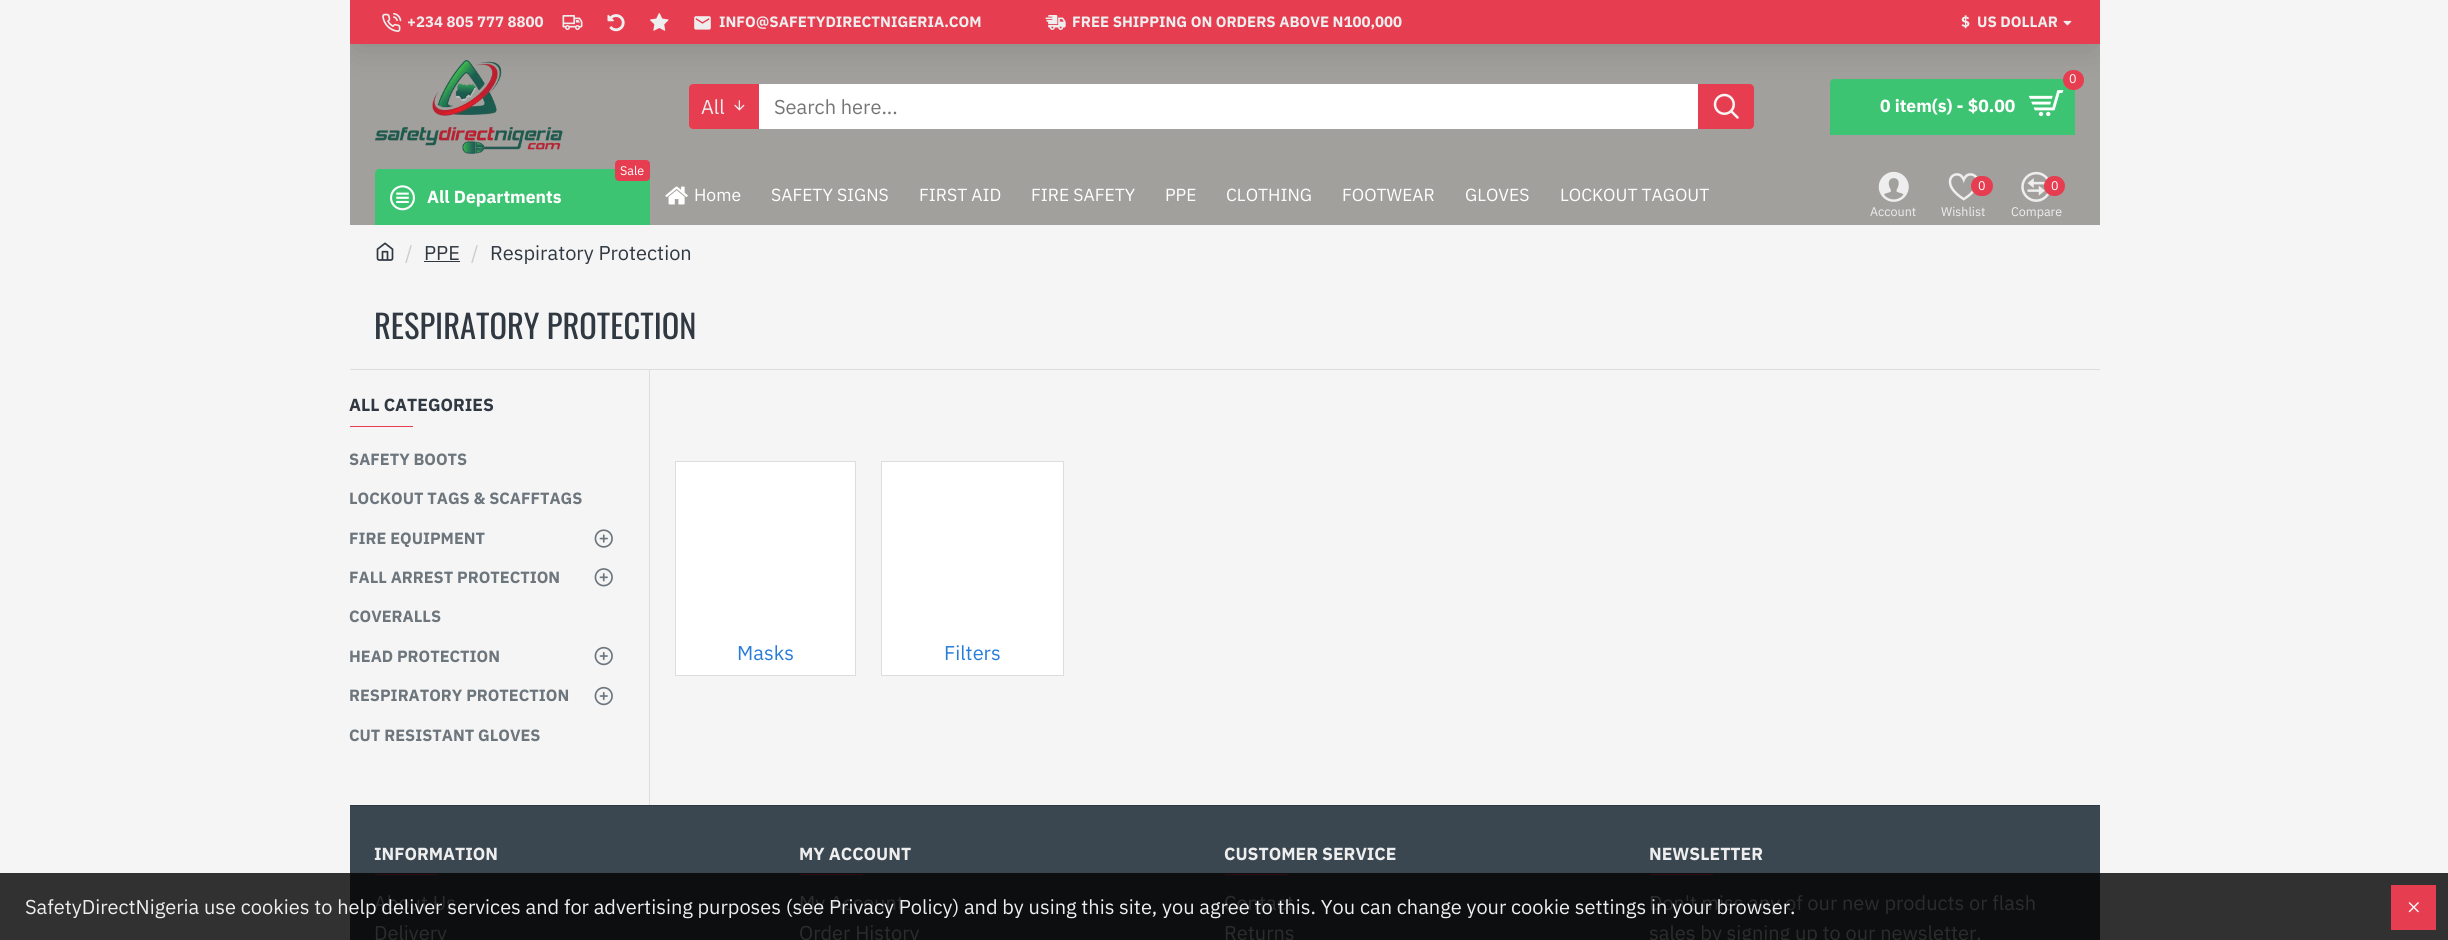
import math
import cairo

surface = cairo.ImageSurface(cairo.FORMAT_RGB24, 2448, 940)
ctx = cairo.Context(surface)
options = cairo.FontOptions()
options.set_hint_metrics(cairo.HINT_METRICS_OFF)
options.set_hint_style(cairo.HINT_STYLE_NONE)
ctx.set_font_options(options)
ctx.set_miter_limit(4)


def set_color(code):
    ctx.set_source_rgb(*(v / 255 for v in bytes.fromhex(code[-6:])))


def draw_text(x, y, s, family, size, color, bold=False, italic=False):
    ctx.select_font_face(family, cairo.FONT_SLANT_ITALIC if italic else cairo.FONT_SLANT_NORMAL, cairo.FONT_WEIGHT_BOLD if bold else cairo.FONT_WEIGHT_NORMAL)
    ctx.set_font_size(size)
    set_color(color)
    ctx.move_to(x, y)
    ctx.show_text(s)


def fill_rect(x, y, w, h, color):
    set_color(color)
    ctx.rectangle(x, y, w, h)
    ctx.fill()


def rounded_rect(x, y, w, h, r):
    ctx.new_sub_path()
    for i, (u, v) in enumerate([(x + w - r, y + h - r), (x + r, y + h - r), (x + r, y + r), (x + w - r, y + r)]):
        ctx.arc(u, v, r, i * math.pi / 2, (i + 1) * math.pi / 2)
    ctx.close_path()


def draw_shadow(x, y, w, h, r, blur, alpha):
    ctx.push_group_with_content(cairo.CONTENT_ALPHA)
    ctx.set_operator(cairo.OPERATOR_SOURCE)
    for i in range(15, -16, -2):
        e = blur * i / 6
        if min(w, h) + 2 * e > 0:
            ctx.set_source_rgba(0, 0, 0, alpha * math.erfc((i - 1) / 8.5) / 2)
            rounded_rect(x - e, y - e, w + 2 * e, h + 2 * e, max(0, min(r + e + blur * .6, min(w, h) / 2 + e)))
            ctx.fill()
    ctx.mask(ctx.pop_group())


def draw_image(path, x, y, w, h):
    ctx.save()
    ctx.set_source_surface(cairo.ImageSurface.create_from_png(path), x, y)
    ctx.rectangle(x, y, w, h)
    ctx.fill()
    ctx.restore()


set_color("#f5f5f5")
ctx.paint()
fill_rect(0, 873, 2448, 67, "#313131")
fill_rect(350, 44, 1750, 181, "#a1a09c")
ctx.save()
ctx.rectangle(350, 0, 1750, 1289)
ctx.clip()
set_color("#000000")
draw_shadow(356, 13, 1738, 31, 0, 19, 0.15)
ctx.restore()
fill_rect(350, 0, 1750, 44, "#e73d50")
draw_image("assets/img1.png", 382, 13, 20, 19)
draw_text(407, 27, "+234 805 777 8800", "IBM Plex Sans", 15, "#eeeeee", bold=True)
draw_image("assets/img2.png", 562, 15, 21, 15)
draw_image("assets/img3.png", 607, 14, 18, 18)
draw_image("assets/img4.png", 650, 13, 19, 18)
draw_image("assets/img5.png", 694, 16, 17, 14)
draw_text(719, 27, "INFO@SAFETYDIRECTNIGERIA.COM", "IBM Plex Sans", 15, "#eeeeee", bold=True)
draw_image("assets/img6.png", 1045, 15, 21, 15)
draw_text(1072, 27, "FREE SHIPPING ON ORDERS ABOVE N100,000", "IBM Plex Sans", 15, "#eeeeee", bold=True)
draw_text(1961, 27, "$", "IBM Plex Sans", 15, "#eeeeee", bold=True)
draw_text(1977, 27, "US DOLLAR", "IBM Plex Sans", 15, "#eeeeee", bold=True)
draw_image("assets/img7.png", 2063, 20, 9, 6)
draw_image("assets/img8.png", 375, 60, 188, 94)
set_color("#e73d50")
ctx.new_path()
ctx.move_to(693, 84)
ctx.line_to(759, 84)
ctx.line_to(759, 129)
ctx.line_to(693, 129)
ctx.curve_to(691, 129, 689, 127, 689, 125)
ctx.line_to(689, 88)
ctx.curve_to(689, 86, 691, 84, 693, 84)
ctx.close_path()
ctx.fill()
draw_text(701, 114, "All", "IBM Plex Sans", 20, "#eeeeee")
draw_image("assets/img9.png", 734, 100, 11, 11)
fill_rect(759, 84, 939, 45, "#ffffff")
draw_text(774, 114, "Search here...", "IBM Plex Sans", 20, "#757575")
set_color("#e73d50")
ctx.new_path()
ctx.move_to(1698, 84)
ctx.line_to(1750, 84)
ctx.curve_to(1752, 84, 1754, 86, 1754, 88)
ctx.line_to(1754, 125)
ctx.curve_to(1754, 127, 1752, 129, 1750, 129)
ctx.line_to(1698, 129)
ctx.close_path()
ctx.fill()
draw_image("assets/img10.png", 1713, 93, 26, 26)
set_color("#3cc472")
ctx.new_path()
ctx.move_to(1834, 79)
ctx.line_to(2075, 79)
ctx.line_to(2075, 135)
ctx.line_to(1830, 135)
ctx.line_to(1830, 83)
ctx.curve_to(1830, 81, 1832, 79, 1834, 79)
ctx.close_path()
ctx.fill()
set_color("#e73d50")
rounded_rect(2063, 70, 21, 20, 10)
ctx.fill()
draw_text(2069, 83, "0", "IBM Plex Sans", 12.5, "#ffffff")
draw_text(1880, 112, "0 item(s) - $0.00", "IBM Plex Sans", 17.5, "#ffffff", bold=True)
draw_image("assets/img11.png", 2028, 90, 36, 27)
set_color("#3cc472")
ctx.new_path()
ctx.move_to(379, 169)
ctx.line_to(646, 169)
ctx.curve_to(648, 169, 650, 171, 650, 173)
ctx.line_to(650, 225)
ctx.line_to(375, 225)
ctx.line_to(375, 173)
ctx.curve_to(375, 171, 377, 169, 379, 169)
ctx.close_path()
ctx.fill()
set_color("#e73d50")
rounded_rect(615, 160, 35, 21, 4)
ctx.fill()
draw_text(620, 175, "Sale", "IBM Plex Sans", 12.5, "#ffffff")
draw_image("assets/img12.png", 390, 185, 25, 26)
draw_text(427, 203, "All Departments", "IBM Plex Sans", 17.5, "#ffffff", bold=True)
draw_image("assets/img13.png", 665, 186, 23, 19)
draw_text(694, 201, "Home", "IBM Plex Sans", 17.5, "#ffffff")
draw_text(771, 201, "SAFETY SIGNS", "IBM Plex Sans", 17.5, "#ffffff")
draw_text(919, 201, "FIRST AID", "IBM Plex Sans", 17.5, "#ffffff")
draw_text(1031, 201, "FIRE SAFETY", "IBM Plex Sans", 17.5, "#ffffff")
draw_text(1165, 201, "PPE", "IBM Plex Sans", 17.5, "#ffffff")
draw_text(1226, 201, "CLOTHING", "IBM Plex Sans", 17.5, "#ffffff")
draw_text(1342, 201, "FOOTWEAR", "IBM Plex Sans", 17.5, "#ffffff")
draw_text(1465, 201, "GLOVES", "IBM Plex Sans", 17.5, "#ffffff")
draw_text(1560, 201, "LOCKOUT TAGOUT", "IBM Plex Sans", 17.5, "#ffffff")
draw_image("assets/img14.png", 1878, 171, 31, 31)
draw_text(1870, 216, "Account", "IBM Plex Sans", 12.5, "#eeeeee")
draw_image("assets/img15.png", 1948, 173, 30, 28)
set_color("#e73d50")
rounded_rect(1971, 176, 22, 20, 10)
ctx.fill()
draw_text(1978, 190, "0", "IBM Plex Sans", 12.5, "#ffffff")
draw_text(1941, 216, "Wishlist", "IBM Plex Sans", 12.5, "#eeeeee")
draw_image("assets/img16.png", 2021, 171, 29, 31)
set_color("#e73d50")
rounded_rect(2044, 176, 21, 20, 10)
ctx.fill()
draw_text(2051, 190, "0", "IBM Plex Sans", 12.5, "#ffffff")
draw_text(2011, 216, "Compare", "IBM Plex Sans", 12.5, "#eeeeee")
draw_image("assets/img17.png", 376, 242, 18, 19)
draw_text(405, 260, "/", "IBM Plex Sans", 20, "#cccccc")
draw_text(424, 260, "PPE", "IBM Plex Sans", 20, "#303841")
fill_rect(424, 261, 36, 1, "#303841")
draw_text(471, 260, "/", "IBM Plex Sans", 20, "#cccccc")
draw_text(490, 260, "Respiratory Protection", "IBM Plex Sans", 20, "#303841")
fill_rect(350, 369, 1750, 1, "#dddddd")
draw_text(374, 339, "RESPIRATORY PROTECTION", "Oswald", 32.5, "#303841")
fill_rect(649, 370, 1, 435, "#dddddd")
draw_text(349, 411, "ALL CATEGORIES", "IBM Plex Sans", 17.5, "#303841", bold=True)
fill_rect(350, 426, 63, 1, "#e73d50")
draw_text(349, 465, "SAFETY BOOTS", "IBM Plex Sans", 16.25, "#6d767d", bold=True)
draw_text(349, 504, "LOCKOUT TAGS & SCAFFTAGS", "IBM Plex Sans", 16.25, "#6d767d", bold=True)
draw_text(349, 544, "FIRE EQUIPMENT", "IBM Plex Sans", 16.25, "#6d767d", bold=True)
draw_image("assets/img18.png", 594, 529, 19, 19)
draw_text(349, 583, "FALL ARREST PROTECTION", "IBM Plex Sans", 16.25, "#6d767d", bold=True)
draw_image("assets/img19.png", 594, 568, 19, 19)
draw_text(349, 622, "COVERALLS", "IBM Plex Sans", 16.25, "#6d767d", bold=True)
draw_text(349, 662, "HEAD PROTECTION", "IBM Plex Sans", 16.25, "#6d767d", bold=True)
draw_image("assets/img20.png", 594, 646, 19, 20)
draw_text(349, 701, "RESPIRATORY PROTECTION", "IBM Plex Sans", 16.25, "#6d767d", bold=True)
draw_image("assets/img20.png", 594, 686, 19, 20)
draw_text(349, 741, "CUT RESISTANT GLOVES", "IBM Plex Sans", 16.25, "#6d767d", bold=True)
set_color("#ffffff")
ctx.rectangle(675.5, 461.5, 180, 214)
ctx.fill_preserve()
set_color("#dddddd")
ctx.set_line_width(1)
ctx.stroke()
draw_text(737, 660, "Masks", "IBM Plex Sans", 20, "#277cd9")
set_color("#ffffff")
ctx.rectangle(881.5, 461.5, 182, 214)
ctx.fill_preserve()
set_color("#dddddd")
ctx.stroke()
draw_text(944, 660, "Filters", "IBM Plex Sans", 20, "#277cd9")
fill_rect(350, 806, 1750, 67, "#3a4750")
fill_rect(350, 873, 1750, 67, "#0c0e10")
fill_rect(350, 805, 1750, 1, "#303841")
draw_text(374, 860, "INFORMATION", "IBM Plex Sans", 17.5, "#eeeeee", bold=True)
fill_rect(375, 874, 63, 1, "#2e0c10")
draw_text(374, 910, "About Us", "IBM Plex Sans", 20, "#2c2c2c")
draw_text(374, 940, "Delivery", "IBM Plex Sans", 20, "#2c2c2c")
draw_text(799, 860, "MY ACCOUNT", "IBM Plex Sans", 17.5, "#eeeeee", bold=True)
fill_rect(800, 874, 63, 1, "#2e0c10")
draw_text(799, 910, "My Account", "IBM Plex Sans", 20, "#2c2c2c")
draw_text(799, 940, "Order History", "IBM Plex Sans", 20, "#2c2c2c")
draw_text(1224, 860, "CUSTOMER SERVICE", "IBM Plex Sans", 17.5, "#eeeeee", bold=True)
fill_rect(1225, 874, 63, 1, "#2e0c10")
draw_text(1224, 910, "Contact", "IBM Plex Sans", 20, "#2c2c2c")
draw_text(1224, 940, "Returns", "IBM Plex Sans", 20, "#2c2c2c")
draw_text(1649, 860, "NEWSLETTER", "IBM Plex Sans", 17.5, "#eeeeee", bold=True)
fill_rect(1650, 874, 63, 1, "#2e0c10")
draw_text(1649, 910, "Don't miss any of our new products or flash", "IBM Plex Sans", 20, "#2c2c2c")
draw_text(1649, 940, "sales by signing up to our newsletter.", "IBM Plex Sans", 20, "#2c2c2c")
draw_text(25, 914, "SafetyDirectNigeria use cookies to help deliver services and for advertising purposes (see Privacy Policy) and by using this site, you agree to this. You can change your cookie settings in your browser.", "IBM Plex Sans", 20, "#eeeeee")
fill_rect(2391, 885, 45, 45, "#e73d50")
draw_image("assets/img21.png", 2408, 902, 11, 11)
surface.write_to_png("output.png")
